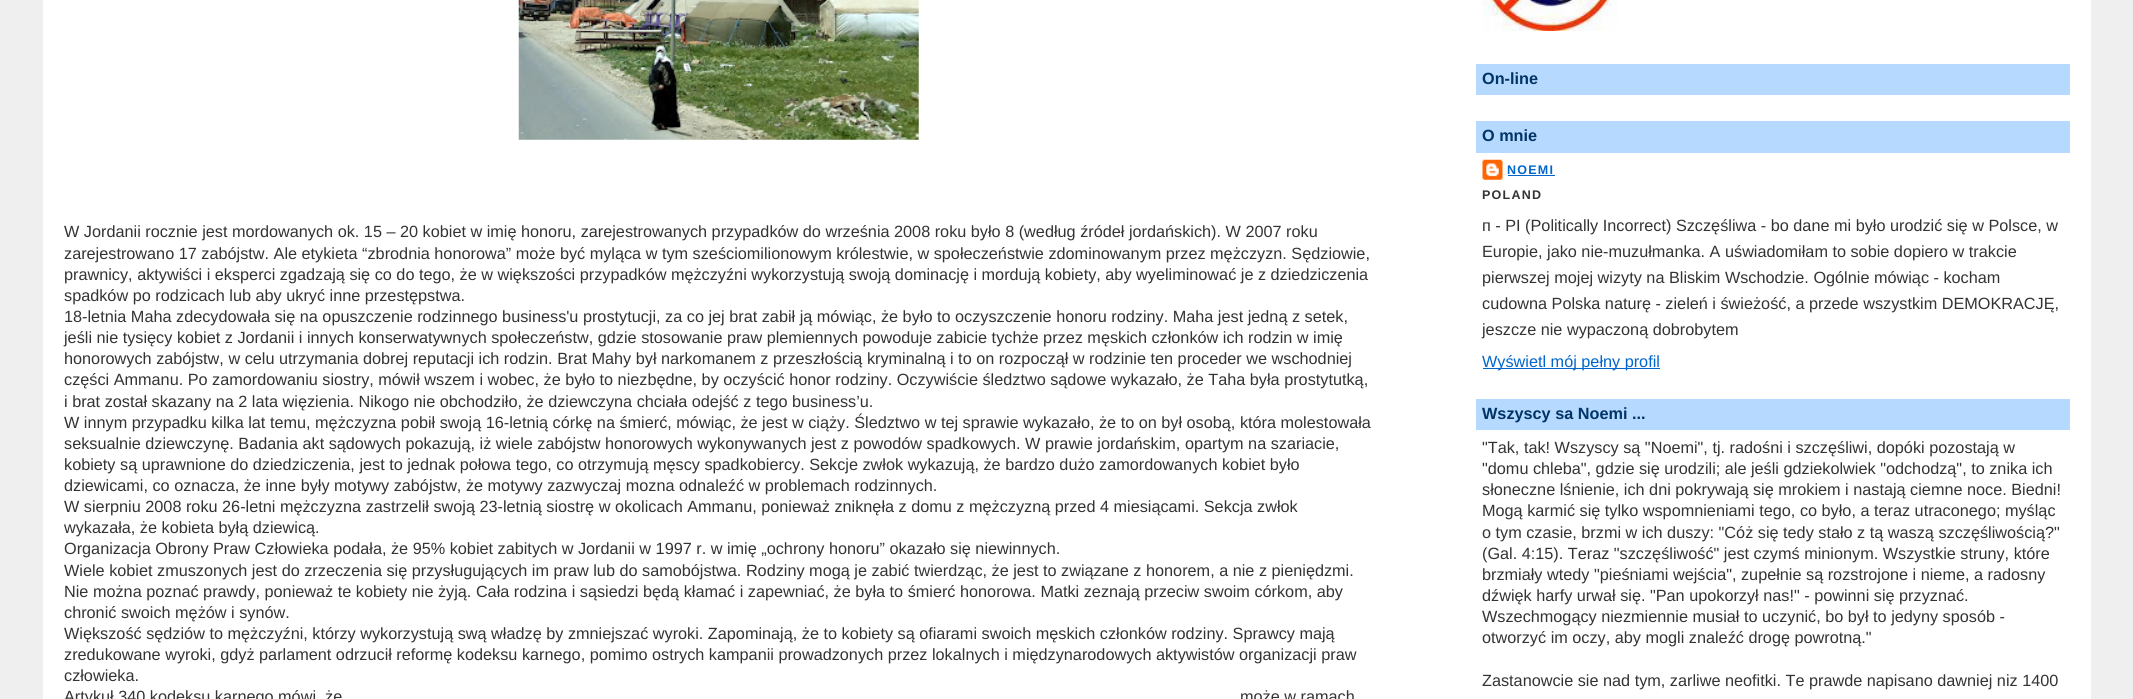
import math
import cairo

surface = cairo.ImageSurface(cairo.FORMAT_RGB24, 2133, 699)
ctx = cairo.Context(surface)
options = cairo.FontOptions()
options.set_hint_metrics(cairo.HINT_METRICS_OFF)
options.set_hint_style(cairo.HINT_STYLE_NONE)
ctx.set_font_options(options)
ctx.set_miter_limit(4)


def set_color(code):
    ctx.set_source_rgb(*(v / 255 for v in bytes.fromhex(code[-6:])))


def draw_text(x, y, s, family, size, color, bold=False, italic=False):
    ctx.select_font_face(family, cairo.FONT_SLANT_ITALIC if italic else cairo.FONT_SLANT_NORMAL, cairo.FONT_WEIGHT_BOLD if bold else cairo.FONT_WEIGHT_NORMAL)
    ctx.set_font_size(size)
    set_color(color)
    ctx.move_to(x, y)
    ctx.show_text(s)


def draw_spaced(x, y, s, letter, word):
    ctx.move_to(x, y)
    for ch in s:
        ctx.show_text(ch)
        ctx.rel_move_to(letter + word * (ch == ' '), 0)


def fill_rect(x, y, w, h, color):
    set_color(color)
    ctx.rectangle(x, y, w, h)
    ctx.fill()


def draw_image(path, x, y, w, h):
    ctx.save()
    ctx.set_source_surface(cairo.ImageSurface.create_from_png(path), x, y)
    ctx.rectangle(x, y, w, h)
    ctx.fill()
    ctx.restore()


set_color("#efefef")
ctx.paint()
fill_rect(43, 0, 2048, 699, "#ffffff")
draw_image("assets/img1.png", 518, 0, 401, 140)
draw_text(64, 237, "W Jordanii rocznie jest mordowanych ok. 15 – 20 kobiet w imię honoru, zarejestrowanych przypadków do września 2008 roku było 8 (według źródeł jordańskich). W 2007 roku", "Liberation Sans", 16.25, "#333333")
draw_text(64, 259, "zarejestrowano 17 zabójstw. Ale etykieta “zbrodnia honorowa” może być myląca w tym sześciomilionowym królestwie, w społeczeństwie zdominowanym przez mężczyzn. Sędziowie,", "Liberation Sans", 16.25, "#333333")
draw_text(64, 280, "prawnicy, aktywiści i eksperci zgadzają się co do tego, że w większości przypadków mężczyźni wykorzystują swoją dominację i mordują kobiety, aby wyeliminować je z dziedziczenia", "Liberation Sans", 16.25, "#333333")
draw_text(64, 301, "spadków po rodzicach lub aby ukryć inne przestępstwa.", "Liberation Sans", 16.25, "#333333")
draw_text(64, 322, "18-letnia Maha zdecydowała się na opuszczenie rodzinnego business'u prostytucji, za co jej brat zabił ją mówiąc, że było to oczyszczenie honoru rodziny. Maha jest jedną z setek,", "Liberation Sans", 16.25, "#333333")
draw_text(64, 343, "jeśli nie tysięcy kobiet z Jordanii i innych konserwatywnych społeczeństw, gdzie stosowanie praw plemiennych powoduje zabicie tychże przez męskich członków ich rodzin w imię", "Liberation Sans", 16.25, "#333333")
draw_text(64, 364, "honorowych zabójstw, w celu utrzymania dobrej reputacji ich rodzin. Brat Mahy był narkomanem z przeszłością kryminalną i to on rozpoczął w rodzinie ten proceder we wschodniej", "Liberation Sans", 16.25, "#333333")
draw_text(64, 385, "części Ammanu. Po zamordowaniu siostry, mówił wszem i wobec, że było to niezbędne, by oczyścić honor rodziny. Oczywiście śledztwo sądowe wykazało, że Taha była prostytutką,", "Liberation Sans", 16.25, "#333333")
draw_text(64, 407, "i brat został skazany na 2 lata więzienia. Nikogo nie obchodziło, że dziewczyna chciała odejść z tego business’u.", "Liberation Sans", 16.25, "#333333")
draw_text(64, 428, "W innym przypadku kilka lat temu, mężczyzna pobił swoją 16-letnią córkę na śmierć, mówiąc, że jest w ciąży. Śledztwo w tej sprawie wykazało, że to on był osobą, która molestowała", "Liberation Sans", 16.25, "#333333")
draw_text(64, 449, "seksualnie dziewczynę. Badania akt sądowych pokazują, iż wiele zabójstw honorowych wykonywanych jest z powodów spadkowych. W prawie jordańskim, opartym na szariacie,", "Liberation Sans", 16.25, "#333333")
draw_text(64, 470, "kobiety są uprawnione do dziedziczenia, jest to jednak połowa tego, co otrzymują męscy spadkobiercy. Sekcje zwłok wykazują, że bardzo dużo zamordowanych kobiet było", "Liberation Sans", 16.25, "#333333")
draw_text(64, 491, "dziewicami, co oznacza, że inne były motywy zabójstw, że motywy zazwyczaj mozna odnaleźć w problemach rodzinnych.", "Liberation Sans", 16.25, "#333333")
draw_text(64, 512, "W sierpniu 2008 roku 26-letni mężczyzna zastrzelił swoją 23-letnią siostrę w okolicach Ammanu, ponieważ zniknęła z domu z mężczyzną przed 4 miesiącami. Sekcja zwłok", "Liberation Sans", 16.25, "#333333")
draw_text(64, 533, "wykazała, że kobieta byłą dziewicą.", "Liberation Sans", 16.25, "#333333")
draw_text(64, 554, "Organizacja Obrony Praw Człowieka podała, że 95% kobiet zabitych w Jordanii w 1997 r. w imię „ochrony honoru” okazało się niewinnych.", "Liberation Sans", 16.25, "#333333")
draw_text(64, 576, "Wiele kobiet zmuszonych jest do zrzeczenia się przysługujących im praw lub do samobójstwa. Rodziny mogą je zabić twierdząc, że jest to związane z honorem, a nie z pieniędzmi.", "Liberation Sans", 16.25, "#333333")
draw_text(64, 597, "Nie można poznać prawdy, ponieważ te kobiety nie żyją. Cała rodzina i sąsiedzi będą kłamać i zapewniać, że była to śmierć honorowa. Matki zeznają przeciw swoim córkom, aby", "Liberation Sans", 16.25, "#333333")
draw_text(64, 618, "chronić swoich mężów i synów.", "Liberation Sans", 16.25, "#333333")
draw_text(64, 639, "Większość sędziów to mężczyźni, którzy wykorzystują swą władzę by zmniejszać wyroki. Zapominają, że to kobiety są ofiarami swoich męskich członków rodziny. Sprawcy mają", "Liberation Sans", 16.25, "#333333")
draw_text(64, 660, "zredukowane wyroki, gdyż parlament odrzucił reformę kodeksu karnego, pomimo ostrych kampanii prowadzonych przez lokalnych i międzynarodowych aktywistów organizacji praw", "Liberation Sans", 16.25, "#333333")
draw_text(64, 681, "człowieka.", "Liberation Sans", 16.25, "#333333")
draw_text(64, 702, "Artykuł 340 kodeksu karnego mówi, że", "Liberation Sans", 16.25, "#333333")
draw_text(1240, 702, "może w ramach", "Liberation Sans", 16.25, "#333333")
draw_image("assets/img2.png", 1482, 0, 136, 31)
fill_rect(1476, 64, 594, 31, "#b5d9ff")
draw_text(1482, 84, "On-line", "Liberation Sans", 16.25, "#003366", bold=True)
fill_rect(1476, 121, 594, 32, "#b5d9ff")
draw_text(1482, 141, "O mnie", "Liberation Sans", 16.25, "#003366", bold=True)
draw_image("assets/img3.png", 1482, 159, 21, 21)
ctx.set_font_size(12.5)
set_color("#0066cc")
draw_spaced(1507, 174, "NOEMI", 1.25, 0)
fill_rect(1508, 175, 47, 1, "#0066cc")
set_color("#333333")
draw_spaced(1482, 199, "POLAND", 1.25, 0)
draw_text(1482, 231, "п - PI (Politically Incorrect) Szczęśliwa - bo dane mi było urodzić się w Polsce, w", "Liberation Sans", 16.25, "#333333")
draw_text(1482, 257, "Europie, jako nie-muzułmanka. A uświadomiłam to sobie dopiero w trakcie", "Liberation Sans", 16.25, "#333333")
draw_text(1482, 283, "pierwszej mojej wizyty na Bliskim Wschodzie. Ogólnie mówiąc - kocham", "Liberation Sans", 16.25, "#333333")
draw_text(1482, 309, "cudowna Polska naturę - zieleń i świeżość, a przede wszystkim DEMOKRACJĘ,", "Liberation Sans", 16.25, "#333333")
draw_text(1482, 335, "jeszcze nie wypaczoną dobrobytem", "Liberation Sans", 16.25, "#333333")
fill_rect(1483, 368, 177, 1, "#0066cc")
draw_text(1482, 367, "Wyświetl mój pełny profil", "Liberation Sans", 16.25, "#0066cc")
fill_rect(1476, 399, 594, 31, "#b5d9ff")
draw_text(1482, 419, "Wszyscy sa Noemi ...", "Liberation Sans", 16.25, "#003366", bold=True)
draw_text(1482, 453, "\"Tak, tak! Wszyscy są \"Noemi\", tj. radośni i szczęśliwi, dopóki pozostają w", "Liberation Sans", 16.25, "#333333")
draw_text(1482, 474, "\"domu chleba\", gdzie się urodzili; ale jeśli gdziekolwiek \"odchodzą\", to znika ich", "Liberation Sans", 16.25, "#333333")
draw_text(1482, 495, "słoneczne lśnienie, ich dni pokrywają się mrokiem i nastają ciemne noce. Biedni!", "Liberation Sans", 16.25, "#333333")
draw_text(1482, 516, "Mogą karmić się tylko wspomnieniami tego, co było, a teraz utraconego; myśląc", "Liberation Sans", 16.25, "#333333")
draw_text(1482, 538, "o tym czasie, brzmi w ich duszy: \"Cóż się tedy stało z tą waszą szczęśliwością?\"", "Liberation Sans", 16.25, "#333333")
draw_text(1482, 559, "(Gal. 4:15). Teraz \"szczęśliwość\" jest czymś minionym. Wszystkie struny, które", "Liberation Sans", 16.25, "#333333")
draw_text(1482, 580, "brzmiały wtedy \"pieśniami wejścia\", zupełnie są rozstrojone i nieme, a radosny", "Liberation Sans", 16.25, "#333333")
draw_text(1482, 601, "dźwięk harfy urwał się. \"Pan upokorzył nas!\" - powinni się przyznać.", "Liberation Sans", 16.25, "#333333")
draw_text(1482, 622, "Wszechmogący niezmiennie musiał to uczynić, bo był to jedyny sposób -", "Liberation Sans", 16.25, "#333333")
draw_text(1482, 643, "otworzyć im oczy, aby mogli znaleźć drogę powrotną.\"", "Liberation Sans", 16.25, "#333333")
draw_text(1482, 686, "Zastanowcie sie nad tym, zarliwe neofitki. Te prawde napisano dawniej niz 1400", "Liberation Sans", 16.25, "#333333")
surface.write_to_png("output.png")
